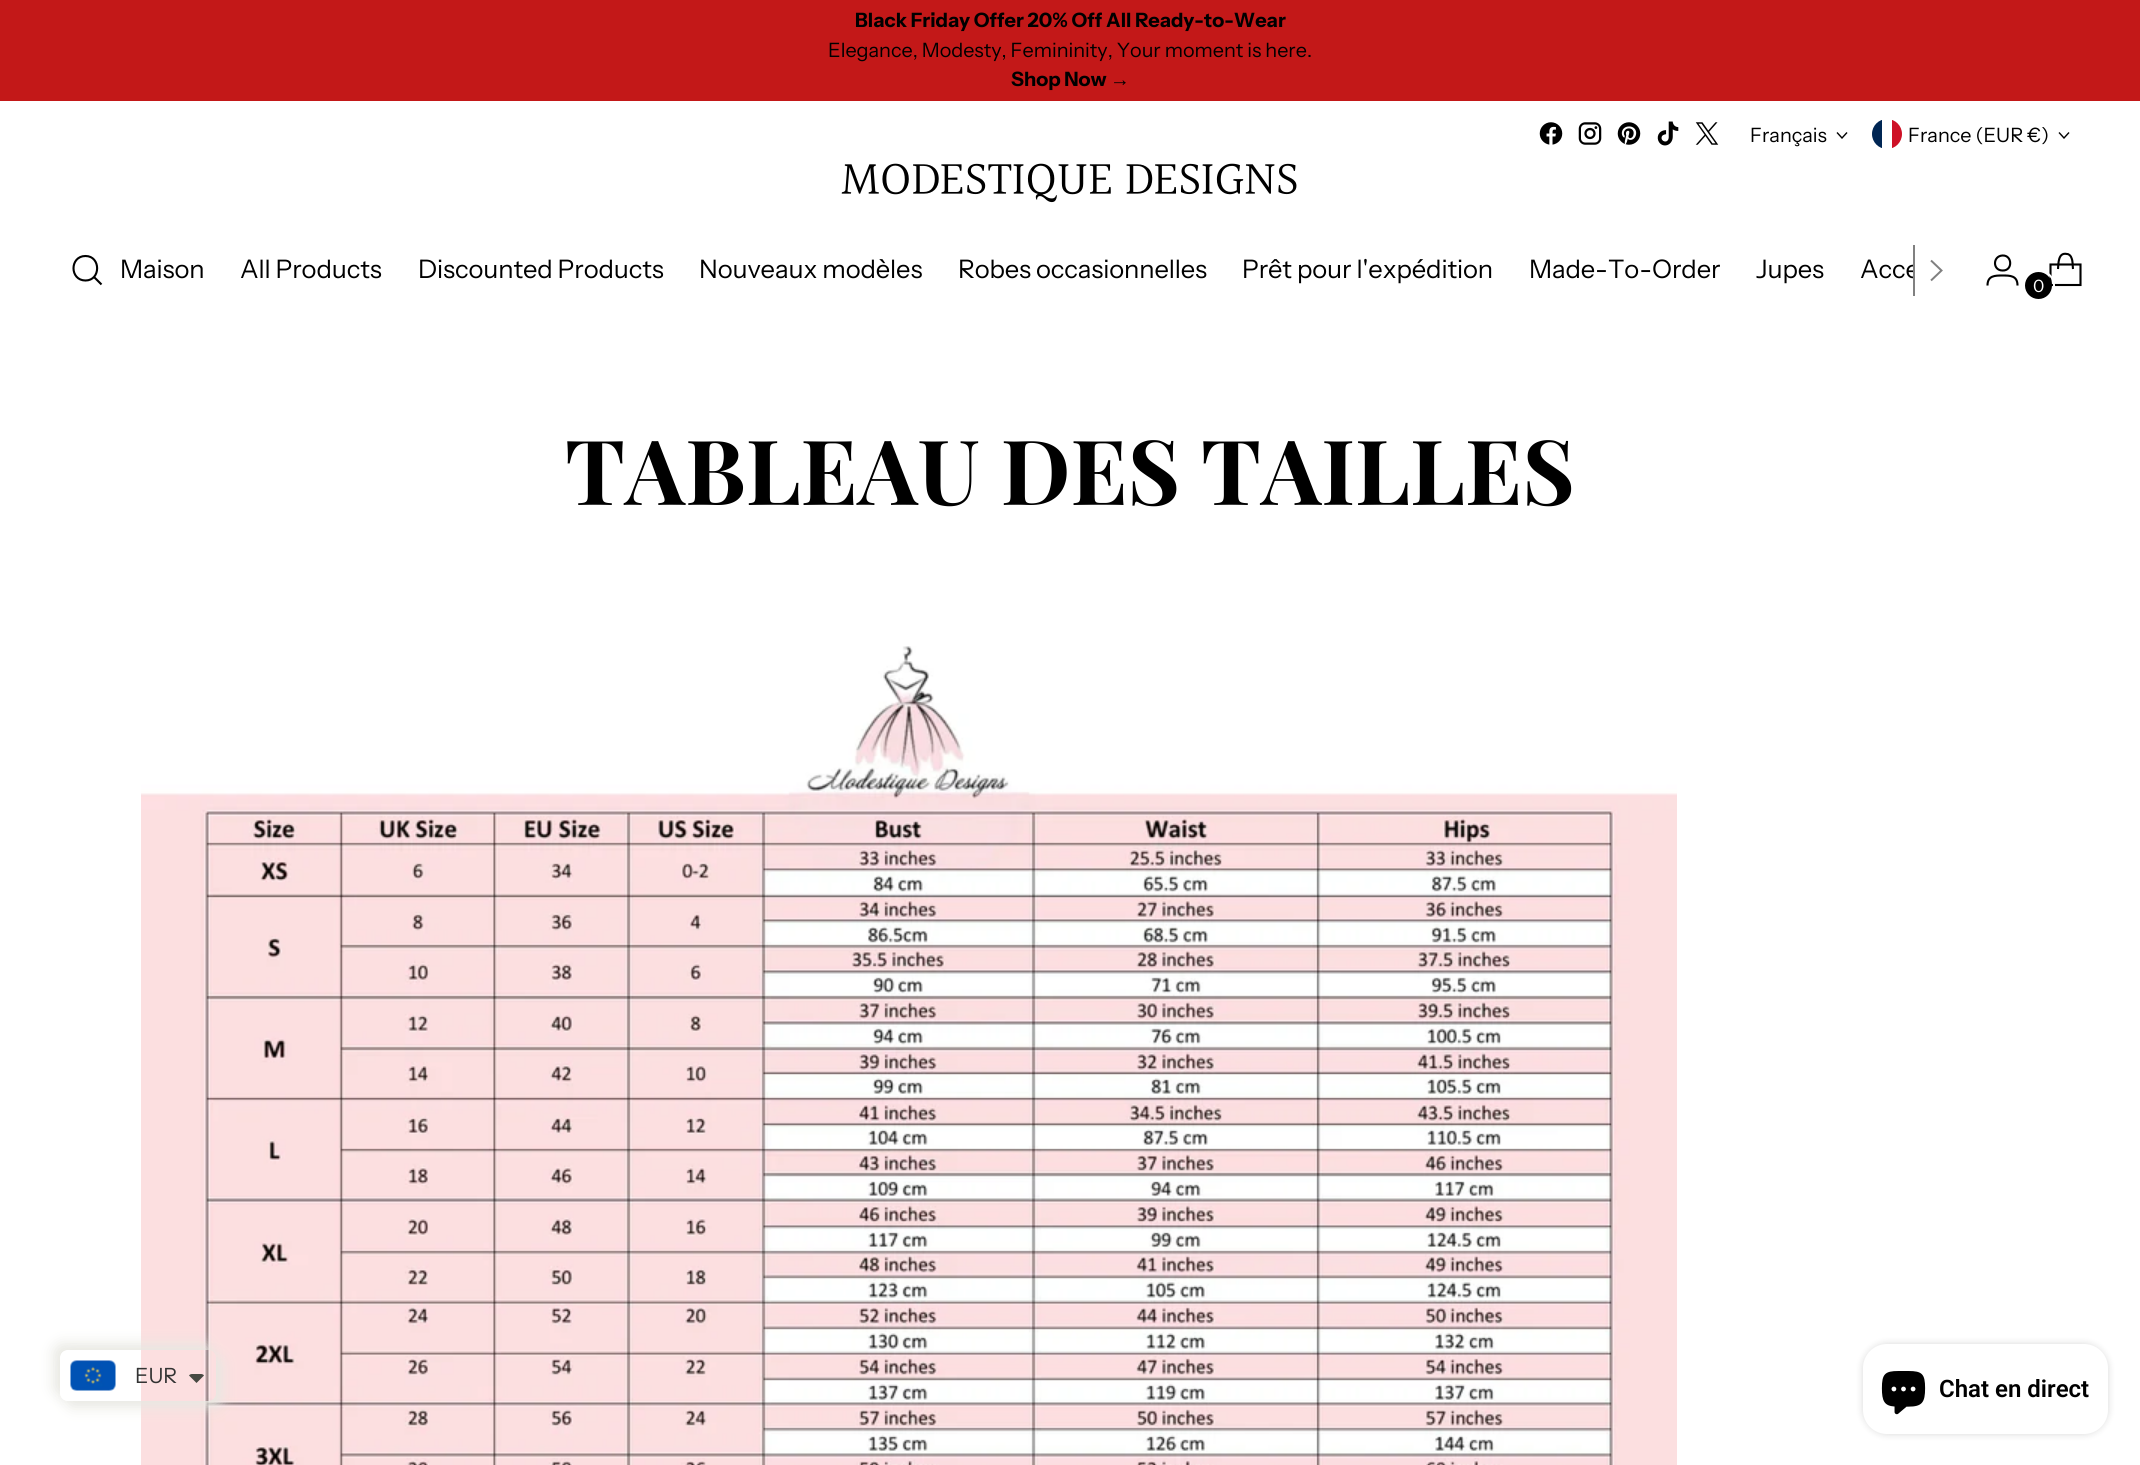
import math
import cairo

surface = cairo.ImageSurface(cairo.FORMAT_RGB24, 2140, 1465)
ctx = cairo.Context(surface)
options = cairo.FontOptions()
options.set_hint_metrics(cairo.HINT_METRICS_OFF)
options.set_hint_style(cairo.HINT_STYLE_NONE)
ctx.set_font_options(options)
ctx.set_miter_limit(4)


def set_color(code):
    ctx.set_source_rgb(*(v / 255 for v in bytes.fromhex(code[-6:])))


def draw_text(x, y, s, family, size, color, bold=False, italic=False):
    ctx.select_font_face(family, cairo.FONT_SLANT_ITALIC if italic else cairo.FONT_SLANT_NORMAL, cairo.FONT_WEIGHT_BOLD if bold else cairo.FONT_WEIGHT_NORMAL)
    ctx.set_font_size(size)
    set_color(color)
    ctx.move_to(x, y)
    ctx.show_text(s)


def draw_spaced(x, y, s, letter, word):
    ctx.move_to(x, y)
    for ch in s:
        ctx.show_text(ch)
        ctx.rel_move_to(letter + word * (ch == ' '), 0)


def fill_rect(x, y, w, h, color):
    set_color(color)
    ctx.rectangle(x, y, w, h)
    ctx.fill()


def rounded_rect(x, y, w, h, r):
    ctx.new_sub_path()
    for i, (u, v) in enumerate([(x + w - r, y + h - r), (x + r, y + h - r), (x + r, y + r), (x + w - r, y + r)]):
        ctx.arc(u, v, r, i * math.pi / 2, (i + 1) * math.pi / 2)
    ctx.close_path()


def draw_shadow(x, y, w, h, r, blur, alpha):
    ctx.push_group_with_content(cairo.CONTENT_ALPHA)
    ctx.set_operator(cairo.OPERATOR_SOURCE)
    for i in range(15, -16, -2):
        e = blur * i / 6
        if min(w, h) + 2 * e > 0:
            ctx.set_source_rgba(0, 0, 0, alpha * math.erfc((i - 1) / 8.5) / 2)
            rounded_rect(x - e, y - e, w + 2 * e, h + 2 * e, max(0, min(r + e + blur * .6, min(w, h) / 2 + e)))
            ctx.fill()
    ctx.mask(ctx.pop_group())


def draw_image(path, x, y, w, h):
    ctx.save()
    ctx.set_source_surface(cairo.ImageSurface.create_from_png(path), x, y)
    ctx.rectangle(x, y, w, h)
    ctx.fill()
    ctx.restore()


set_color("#ffffff")
ctx.paint()
fill_rect(0, 0, 2140, 101, "#c31818")
draw_text(855, 27, "Black Friday Offer 20% Off All Ready-to-Wear", "Instrument Sans", 19.8, "#000000", bold=True)
draw_text(828, 57, "Elegance, Modesty, Femininity, Your moment is here.", "Instrument Sans", 19.8, "#000000")
draw_text(1011, 86, "Shop Now", "Instrument Sans", 19.8, "#000000", bold=True)
draw_text(1110, 86, "→", "Liberation Sans", 19.8, "#000000", bold=True)
draw_image("assets/img1.png", 1539, 122, 24, 23)
draw_image("assets/img2.png", 1578, 122, 24, 23)
draw_image("assets/img3.png", 1617, 122, 24, 23)
draw_image("assets/img4.png", 1657, 121, 22, 25)
draw_image("assets/img5.png", 1695, 122, 24, 23)
draw_text(1750, 142, "Français", "Instrument Sans", 19.8, "#000000")
ctx.new_path()
ctx.move_to(1837, 132.5)
ctx.line_to(1842, 138)
ctx.line_to(1847, 132.5)
ctx.set_line_width(1.4)
ctx.stroke()
ctx.save()
rounded_rect(1872, 119, 30, 30, 15)
ctx.clip()
fill_rect(1872, 120, 10, 28, "#002654")
fill_rect(1892, 120, 10, 28, "#ce1126")
ctx.restore()
draw_text(1908, 142, "France (EUR €)", "Instrument Sans", 19.8, "#000000")
ctx.new_path()
ctx.move_to(2059, 132.5)
ctx.line_to(2064, 138)
ctx.line_to(2069, 132.5)
ctx.stroke()
draw_text(841, 196, "MODESTIQUE DESIGNS", "Halant", 48, "#000000")
ctx.new_path()
ctx.move_to(85.5, 280.5)
ctx.curve_to(101, 280.5, 101, 256, 85.5, 256)
ctx.curve_to(69.5, 256, 69.5, 280.5, 85.5, 280.5)
ctx.close_path()
ctx.set_line_width(2.1)
ctx.set_line_cap(cairo.LINE_CAP_ROUND)
ctx.stroke()
ctx.new_path()
ctx.move_to(94, 277)
ctx.line_to(101.5, 284.5)
ctx.set_line_cap(cairo.LINE_CAP_BUTT)
ctx.stroke()
ctx.select_font_face("Instrument Sans")
ctx.set_font_size(25.5)
draw_spaced(120, 278, "Maison", -0.1, 0)
draw_spaced(240, 278, "All Products", -0.1, 0)
draw_spaced(418, 278, "Discounted Products", -0.1, 0)
draw_spaced(699, 278, "Nouveaux modèles", -0.1, 0)
draw_spaced(958, 278, "Robes occasionnelles", -0.1, 0)
draw_spaced(1242, 278, "Prêt pour l'expédition", -0.1, 0)
draw_spaced(1529, 278, "Made-To-Order", -0.1, 0)
draw_spaced(1756, 278, "Jupes", -0.1, 0)
ctx.save()
ctx.rectangle(119, 219, 1794, 102)
ctx.clip()
draw_spaced(1860, 278, "Acce", -0.1, 0)
ctx.restore()
fill_rect(1913, 245, 2, 51, "#808080")
ctx.new_path()
ctx.move_to(1931, 280.5)
ctx.line_to(1941.5, 270.5)
ctx.line_to(1931, 260.5)
ctx.set_line_width(2)
ctx.stroke()
ctx.new_path()
ctx.move_to(2002.5, 270.5)
ctx.curve_to(2013, 271, 2012.5, 255, 2002.5, 255.5)
ctx.curve_to(1992.5, 256, 1992.5, 270.5, 2002.5, 270.5)
ctx.close_path()
ctx.move_to(1987.5, 285.5)
ctx.curve_to(1987.5, 275.5, 1995, 275.5, 2002.5, 275.5)
ctx.curve_to(2010, 275.5, 2017.5, 275.5, 2017.5, 285.5)
set_color("#000000")
ctx.set_line_width(2.1)
ctx.stroke()
ctx.new_path()
ctx.move_to(2073, 269)
ctx.curve_to(2072.5, 265.5, 2073, 261.5, 2071.5, 258)
ctx.curve_to(2071, 256, 2069, 254, 2067, 254)
ctx.curve_to(2058, 252, 2058.5, 263.5, 2058, 269)
ctx.set_line_join(cairo.LINE_JOIN_BEVEL)
ctx.stroke()
ctx.new_path()
ctx.move_to(2080.5, 285)
ctx.line_to(2080.5, 264.5)
ctx.line_to(2050.5, 264.5)
ctx.line_to(2050.5, 285)
ctx.close_path()
ctx.set_line_join(cairo.LINE_JOIN_MITER)
ctx.stroke()
rounded_rect(2025, 271, 29, 30, 14.5)
set_color("#ffffff")
ctx.set_line_width(2)
ctx.stroke()
set_color("#000000")
ctx.arc(2038.5, 285.5, 13.5, 0, 2 * math.pi)
ctx.fill()
draw_text(2033, 292, "0", "Instrument Sans", 17, "#ffffff")
draw_text(565, 505, "TABLEAU DES TAILLES", "Playfair Display", 90, "#000000", bold=True)
draw_image("assets/img6.png", 141, 646, 1536, 819)
ctx.save()
ctx.set_fill_rule(cairo.FILL_RULE_EVEN_ODD)
ctx.new_path()
ctx.move_to(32, 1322)
ctx.line_to(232, 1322)
ctx.line_to(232, 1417)
ctx.line_to(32, 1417)
ctx.close_path()
ctx.move_to(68, 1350)
ctx.line_to(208, 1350)
ctx.curve_to(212.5, 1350, 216, 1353.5, 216, 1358)
ctx.line_to(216, 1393)
ctx.curve_to(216, 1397.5, 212.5, 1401, 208, 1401)
ctx.line_to(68, 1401)
ctx.curve_to(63.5, 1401, 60, 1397.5, 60, 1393)
ctx.line_to(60, 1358)
ctx.curve_to(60, 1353.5, 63.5, 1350, 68, 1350)
ctx.close_path()
ctx.clip()
set_color("#e8e8e2")
draw_shadow(54, 1344, 156, 51, 8, 7, 1)
ctx.restore()
ctx.save()
ctx.set_fill_rule(cairo.FILL_RULE_EVEN_ODD)
ctx.new_path()
ctx.move_to(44, 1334)
ctx.line_to(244, 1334)
ctx.line_to(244, 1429)
ctx.line_to(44, 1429)
ctx.close_path()
ctx.move_to(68, 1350)
ctx.line_to(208, 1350)
ctx.curve_to(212.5, 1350, 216, 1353.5, 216, 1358)
ctx.line_to(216, 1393)
ctx.curve_to(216, 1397.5, 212.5, 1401, 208, 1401)
ctx.line_to(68, 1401)
ctx.curve_to(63.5, 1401, 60, 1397.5, 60, 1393)
ctx.line_to(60, 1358)
ctx.curve_to(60, 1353.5, 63.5, 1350, 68, 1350)
ctx.close_path()
ctx.clip()
set_color("#e8e8e2")
draw_shadow(66, 1356, 156, 51, 8, 7, 1)
ctx.restore()
draw_image("assets/img7.png", 70, 1360, 46, 31)
draw_text(135, 1383, "EUR", "Instrument Sans", 21, "#333333")
set_color("#474942")
ctx.new_path()
ctx.move_to(192, 1374)
ctx.curve_to(191, 1374, 189.5, 1374.5, 189, 1375.5)
ctx.line_to(196.5, 1383)
ctx.line_to(204, 1375.5)
ctx.curve_to(203.5, 1374.5, 202, 1374, 201, 1374)
ctx.close_path()
ctx.fill()
set_color("#000000")
draw_shadow(1863, 1344, 245, 90, 24, 4, 0.15)
set_color("#ffffff")
rounded_rect(1863, 1344, 245, 90, 24)
ctx.fill()
draw_image("assets/img8.png", 1881, 1371, 45, 44)
draw_text(1939, 1397, "Chat en direct", "Roboto SemiBold", 24, "#000000")
surface.write_to_png("output.png")
